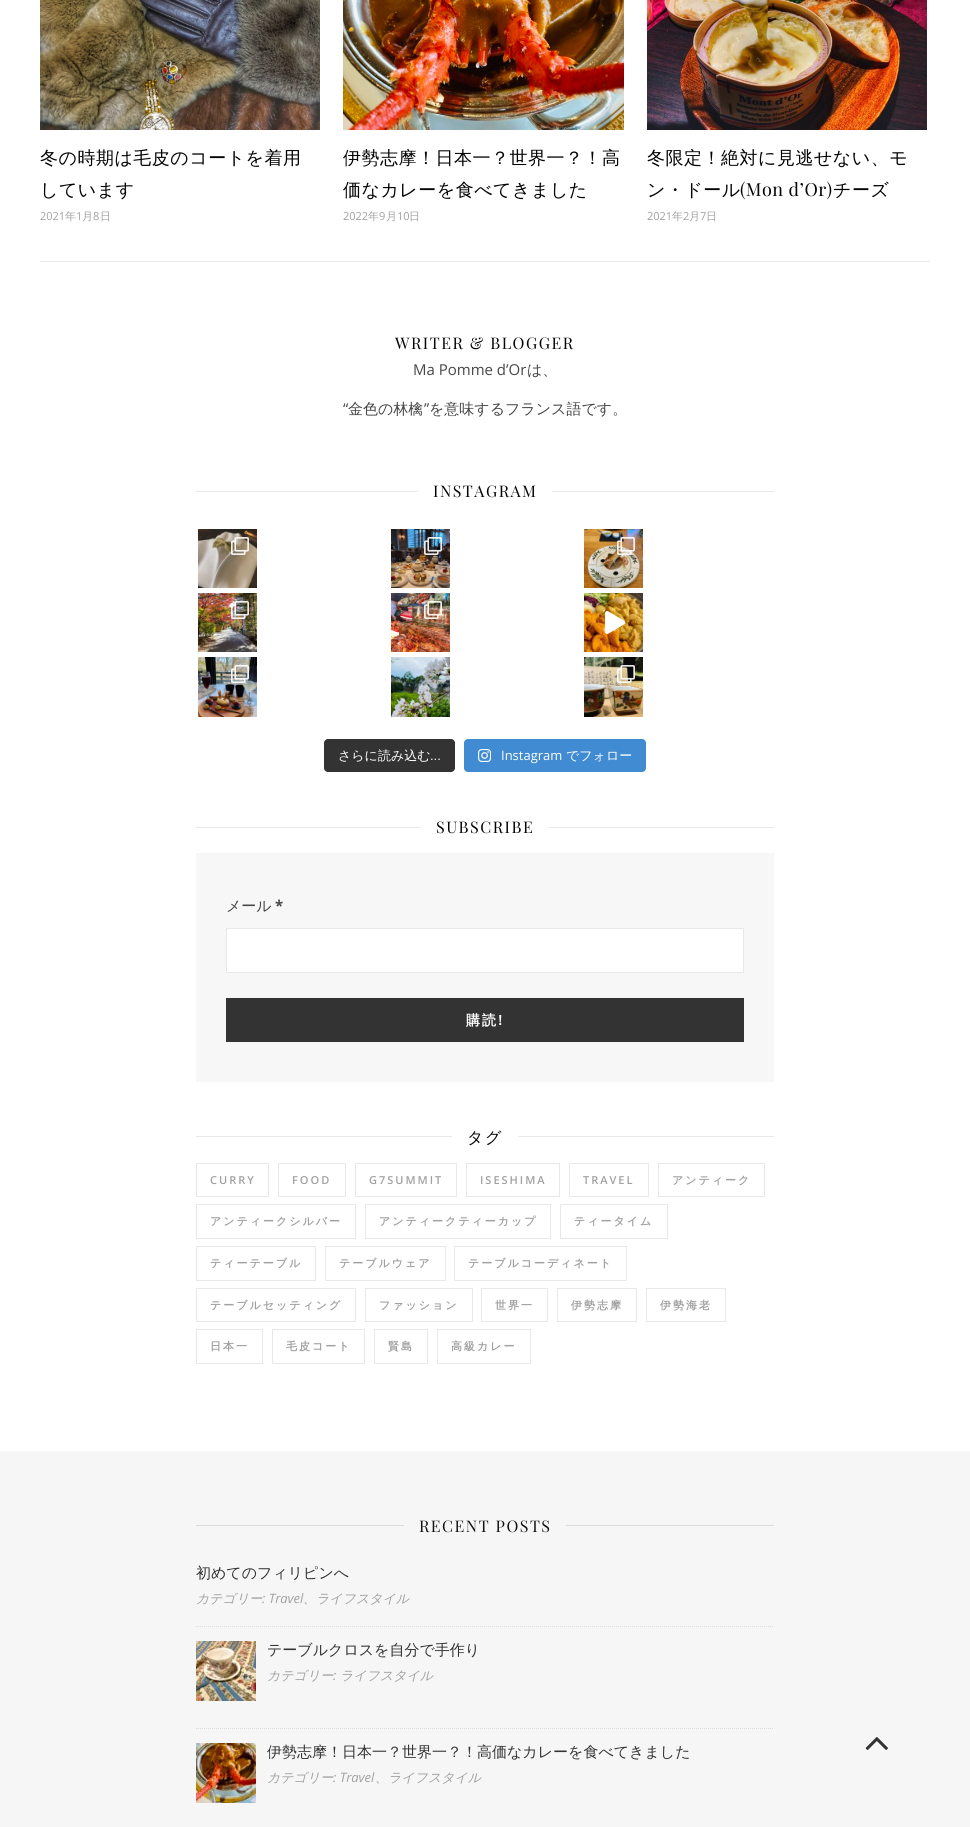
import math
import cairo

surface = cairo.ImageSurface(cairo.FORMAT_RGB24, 970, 1827)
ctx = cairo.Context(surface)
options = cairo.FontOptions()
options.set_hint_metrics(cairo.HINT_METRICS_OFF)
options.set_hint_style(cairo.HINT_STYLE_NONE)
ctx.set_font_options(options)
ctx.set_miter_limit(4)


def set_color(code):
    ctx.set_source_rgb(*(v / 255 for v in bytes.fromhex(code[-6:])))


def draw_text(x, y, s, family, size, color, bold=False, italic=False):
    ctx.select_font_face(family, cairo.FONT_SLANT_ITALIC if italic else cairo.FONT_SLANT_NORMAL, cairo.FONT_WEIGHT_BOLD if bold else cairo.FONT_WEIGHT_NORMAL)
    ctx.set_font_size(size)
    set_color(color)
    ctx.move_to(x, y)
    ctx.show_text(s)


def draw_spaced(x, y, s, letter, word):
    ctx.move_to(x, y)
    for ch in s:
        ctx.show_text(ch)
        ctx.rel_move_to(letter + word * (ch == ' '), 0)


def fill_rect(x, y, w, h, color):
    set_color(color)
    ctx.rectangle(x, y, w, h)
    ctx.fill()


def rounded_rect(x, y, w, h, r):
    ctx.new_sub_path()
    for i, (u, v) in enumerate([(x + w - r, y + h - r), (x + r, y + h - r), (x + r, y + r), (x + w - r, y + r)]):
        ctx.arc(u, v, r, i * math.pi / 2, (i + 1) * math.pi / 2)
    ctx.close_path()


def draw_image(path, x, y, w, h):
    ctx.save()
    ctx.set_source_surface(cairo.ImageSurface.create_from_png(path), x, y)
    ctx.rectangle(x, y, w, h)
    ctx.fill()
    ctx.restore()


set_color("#ffffff")
ctx.paint()
fill_rect(40, 261, 890, 1, "#e8e8e8")
draw_image("assets/img1.png", 40, 0, 280, 130)
ctx.select_font_face("WenQuanYi Zen Hei Medium")
ctx.set_font_size(18)
set_color("#030303")
draw_spaced(40, 164, "冬の時期は毛皮のコートを着用", 0.5, 0)
draw_spaced(40, 196, "しています", 0.5, 0)
draw_text(40, 220, "2021", "Open Sans", 11, "#a1a1a1")
draw_text(65, 220, "年", "WenQuanYi Zen Hei Medium", 11, "#a1a1a1")
draw_text(76, 220, "1", "Open Sans", 11, "#a1a1a1")
draw_text(82, 220, "月", "WenQuanYi Zen Hei Medium", 11, "#a1a1a1")
draw_text(93, 220, "8", "Open Sans", 11, "#a1a1a1")
draw_text(100, 220, "日", "WenQuanYi Zen Hei Medium", 11, "#a1a1a1")
draw_image("assets/img2.png", 343, 0, 281, 130)
ctx.set_font_size(18)
set_color("#030303")
draw_spaced(343, 164, "伊勢志摩！日本一？世界一？！高", 0.5, 0)
draw_spaced(343, 196, "価なカレーを食べてきました", 0.5, 0)
draw_text(343, 220, "2022", "Open Sans", 11, "#a1a1a1")
draw_text(368, 220, "年", "WenQuanYi Zen Hei Medium", 11, "#a1a1a1")
draw_text(379, 220, "9", "Open Sans", 11, "#a1a1a1")
draw_text(386, 220, "月", "WenQuanYi Zen Hei Medium", 11, "#a1a1a1")
draw_text(397, 220, "10", "Open Sans", 11, "#a1a1a1")
draw_text(409, 220, "日", "WenQuanYi Zen Hei Medium", 11, "#a1a1a1")
draw_image("assets/img3.png", 647, 0, 280, 130)
ctx.set_font_size(18)
set_color("#030303")
draw_spaced(647, 164, "冬限定！絶対に見逃せない、モ", 0.5, 0)
draw_spaced(647, 196, "ン・ドール", 0.5, 0)
ctx.select_font_face("Playfair Display")
draw_spaced(740, 196, "(Mon d’Or)", 0.5, 0)
ctx.select_font_face("WenQuanYi Zen Hei Medium")
draw_spaced(833, 196, "チーズ", 0.5, 0)
draw_text(647, 220, "2021", "Open Sans", 11, "#a1a1a1")
draw_text(672, 220, "年", "WenQuanYi Zen Hei Medium", 11, "#a1a1a1")
draw_text(683, 220, "2", "Open Sans", 11, "#a1a1a1")
draw_text(689, 220, "月", "WenQuanYi Zen Hei Medium", 11, "#a1a1a1")
draw_text(700, 220, "7", "Open Sans", 11, "#a1a1a1")
draw_text(706, 220, "日", "WenQuanYi Zen Hei Medium", 11, "#a1a1a1")
ctx.select_font_face("Playfair Display")
ctx.set_font_size(16)
set_color("#030303")
draw_spaced(395, 349, "WRITER & BLOGGER", 1.5, 0)
draw_text(413, 375, "Ma Pomme d’Or", "Open Sans", 15, "#464646")
draw_text(527, 375, "は、", "WenQuanYi Zen Hei Medium", 15, "#464646")
draw_text(343, 414, "“", "Open Sans", 15, "#464646")
draw_text(348, 414, "金色の林檎", "WenQuanYi Zen Hei Medium", 15, "#464646")
draw_text(424, 414, "”", "Open Sans", 15, "#464646")
draw_text(429, 414, "を意味するフランス語です。", "WenQuanYi Zen Hei Medium", 15, "#464646")
fill_rect(196, 491, 222, 1, "#e8e8e8")
ctx.select_font_face("Playfair Display")
ctx.set_font_size(16)
set_color("#030303")
draw_spaced(433, 497, "INSTAGRAM", 1.5, 0)
fill_rect(552, 491, 222, 1, "#e8e8e8")
draw_image("assets/img4.png", 198, 529, 59, 59)
draw_image("assets/img5.png", 231, 537, 18, 18)
draw_image("assets/img6.png", 391, 529, 59, 59)
draw_image("assets/img7.png", 424, 537, 18, 18)
draw_image("assets/img8.png", 584, 529, 59, 59)
draw_image("assets/img9.png", 617, 537, 18, 18)
draw_image("assets/img10.png", 198, 593, 59, 59)
draw_image("assets/img11.png", 231, 601, 18, 18)
draw_image("assets/img12.png", 391, 593, 59, 59)
draw_image("assets/img13.png", 424, 601, 18, 18)
draw_image("assets/img14.png", 584, 593, 59, 59)
draw_image("assets/img15.png", 605, 611, 20, 23)
draw_image("assets/img16.png", 198, 657, 59, 60)
draw_image("assets/img17.png", 231, 665, 18, 18)
draw_image("assets/img18.png", 391, 657, 59, 60)
draw_image("assets/img19.png", 584, 657, 59, 60)
draw_image("assets/img20.png", 617, 665, 18, 18)
set_color("#333333")
rounded_rect(324, 739, 131, 33, 4)
ctx.fill()
draw_text(338, 760, "さらに読み込む", "WenQuanYi Zen Hei Medium", 13, "#ffffff")
draw_text(430, 760, "...", "Liberation Sans", 13, "#ffffff")
set_color("#408bd1")
rounded_rect(464, 739, 182, 33, 4)
ctx.fill()
draw_image("assets/img21.png", 478, 749, 13, 13)
draw_text(501, 760, "Instagram", "Open Sans", 13, "#ffffff")
draw_text(566, 760, "でフォロー", "WenQuanYi Zen Hei Medium", 13, "#ffffff")
fill_rect(196, 827, 225, 1, "#e8e8e8")
ctx.select_font_face("Playfair Display")
ctx.set_font_size(16)
set_color("#030303")
draw_spaced(436, 833, "SUBSCRIBE", 1.5, 0)
fill_rect(549, 827, 225, 1, "#e8e8e8")
fill_rect(196, 853, 578, 229, "#f7f7f7")
draw_text(226, 911, "メール", "WenQuanYi Zen Hei Medium", 15, "#464646")
draw_text(275, 911, "*", "Open Sans", 15, "#464646", bold=True)
set_color("#ffffff")
ctx.rectangle(226.5, 928.5, 517, 44)
ctx.fill_preserve()
set_color("#e8e8e8")
ctx.set_line_width(1)
ctx.stroke()
fill_rect(226, 998, 518, 44, "#333333")
ctx.select_font_face("WenQuanYi Zen Hei", cairo.FONT_SLANT_NORMAL, cairo.FONT_WEIGHT_BOLD)
ctx.set_font_size(14)
set_color("#ffffff")
draw_spaced(466, 1025, "購読!", 2, 0)
fill_rect(196, 1136, 256, 1, "#e8e8e8")
ctx.select_font_face("WenQuanYi Zen Hei Medium")
ctx.set_font_size(16)
set_color("#030303")
draw_spaced(467, 1143, "タグ", 1.5, 0)
fill_rect(518, 1136, 256, 1, "#e8e8e8")
ctx.rectangle(196.5, 1163.5, 72, 33)
ctx.stroke()
ctx.select_font_face("Open Sans SemiBold")
ctx.set_font_size(11)
set_color("#a1a1a1")
draw_spaced(210, 1184, "CURRY", 2, 0)
ctx.rectangle(278.5, 1163.5, 67, 33)
set_color("#e8e8e8")
ctx.stroke()
set_color("#a1a1a1")
draw_spaced(292, 1184, "FOOD", 2, 0)
ctx.rectangle(355.5, 1163.5, 101, 33)
set_color("#e8e8e8")
ctx.stroke()
set_color("#a1a1a1")
draw_spaced(369, 1184, "G7SUMMIT", 2, 0)
ctx.rectangle(466.5, 1163.5, 93, 33)
set_color("#e8e8e8")
ctx.stroke()
set_color("#a1a1a1")
draw_spaced(480, 1184, "ISESHIMA", 2, 0)
ctx.rectangle(569.5, 1163.5, 79, 33)
set_color("#e8e8e8")
ctx.stroke()
set_color("#a1a1a1")
draw_spaced(583, 1184, "TRAVEL", 2, 0)
ctx.rectangle(658.5, 1163.5, 106, 33)
set_color("#e8e8e8")
ctx.stroke()
ctx.select_font_face("WenQuanYi Zen Hei", cairo.FONT_SLANT_NORMAL, cairo.FONT_WEIGHT_BOLD)
set_color("#a1a1a1")
draw_spaced(672, 1184, "アンティーク", 2, 0)
ctx.rectangle(196.5, 1204.5, 159, 34)
set_color("#e8e8e8")
ctx.stroke()
set_color("#a1a1a1")
draw_spaced(210, 1225, "アンティークシルバー", 2, 0)
ctx.rectangle(365.5, 1204.5, 185, 34)
set_color("#e8e8e8")
ctx.stroke()
set_color("#a1a1a1")
draw_spaced(379, 1225, "アンティークティーカップ", 2, 0)
ctx.rectangle(560.5, 1204.5, 107, 34)
set_color("#e8e8e8")
ctx.stroke()
set_color("#a1a1a1")
draw_spaced(574, 1225, "ティータイム", 2, 0)
ctx.rectangle(196.5, 1246.5, 119, 34)
set_color("#e8e8e8")
ctx.stroke()
set_color("#a1a1a1")
draw_spaced(210, 1267, "ティーテーブル", 2, 0)
ctx.rectangle(325.5, 1246.5, 120, 34)
set_color("#e8e8e8")
ctx.stroke()
set_color("#a1a1a1")
draw_spaced(339, 1267, "テーブルウェア", 2, 0)
ctx.rectangle(454.5, 1246.5, 172, 34)
set_color("#e8e8e8")
ctx.stroke()
set_color("#a1a1a1")
draw_spaced(468, 1267, "テーブルコーディネート", 2, 0)
ctx.rectangle(196.5, 1288.5, 159, 33)
set_color("#e8e8e8")
ctx.stroke()
set_color("#a1a1a1")
draw_spaced(210, 1309, "テーブルセッティング", 2, 0)
ctx.rectangle(365.5, 1288.5, 107, 33)
set_color("#e8e8e8")
ctx.stroke()
set_color("#a1a1a1")
draw_spaced(379, 1309, "ファッション", 2, 0)
ctx.rectangle(481.5, 1288.5, 66, 33)
set_color("#e8e8e8")
ctx.stroke()
set_color("#a1a1a1")
draw_spaced(495, 1309, "世界一", 2, 0)
ctx.rectangle(557.5, 1288.5, 79, 33)
set_color("#e8e8e8")
ctx.stroke()
set_color("#a1a1a1")
draw_spaced(571, 1309, "伊勢志摩", 2, 0)
ctx.rectangle(646.5, 1288.5, 79, 33)
set_color("#e8e8e8")
ctx.stroke()
set_color("#a1a1a1")
draw_spaced(660, 1309, "伊勢海老", 2, 0)
ctx.rectangle(196.5, 1329.5, 66, 34)
set_color("#e8e8e8")
ctx.stroke()
set_color("#a1a1a1")
draw_spaced(210, 1350, "日本一", 2, 0)
ctx.rectangle(272.5, 1329.5, 92, 34)
set_color("#e8e8e8")
ctx.stroke()
set_color("#a1a1a1")
draw_spaced(286, 1350, "毛皮コート", 2, 0)
ctx.rectangle(374.5, 1329.5, 53, 34)
set_color("#e8e8e8")
ctx.stroke()
set_color("#a1a1a1")
draw_spaced(388, 1350, "賢島", 2, 0)
ctx.rectangle(437.5, 1329.5, 93, 34)
set_color("#e8e8e8")
ctx.stroke()
set_color("#a1a1a1")
draw_spaced(451, 1350, "高級カレー", 2, 0)
fill_rect(0, 1451, 970, 376, "#f6f6f6")
fill_rect(196, 1525, 208, 1, "#e0dbdb")
ctx.select_font_face("Playfair Display")
ctx.set_font_size(16)
set_color("#111111")
draw_spaced(419, 1532, "RECENT POSTS", 1.5, 0)
fill_rect(566, 1525, 208, 1, "#e0dbdb")
ctx.new_path()
ctx.move_to(196, 1626.5)
ctx.line_to(774, 1626.5)
ctx.set_dash([1, 1])
ctx.stroke()
draw_text(196, 1578, "初めてのフィリピンへ", "WenQuanYi Zen Hei Medium", 15, "#333333")
draw_text(196, 1603, "カテゴリー", "WenQuanYi Zen Hei Medium", 13, "#a1a1a1", italic=True)
draw_text(262, 1603, ": Travel", "Open Sans", 13, "#a1a1a1", italic=True)
draw_text(303, 1603, "、ライフスタイル", "WenQuanYi Zen Hei Medium", 13, "#a1a1a1", italic=True)
ctx.new_path()
ctx.move_to(196, 1728.5)
ctx.line_to(774, 1728.5)
set_color("#e0dbdb")
ctx.stroke()
draw_image("assets/img22.png", 196, 1641, 60, 60)
draw_text(267, 1655, "テーブルクロスを自分で手作り", "WenQuanYi Zen Hei Medium", 15, "#333333")
draw_text(267, 1680, "カテゴリー", "WenQuanYi Zen Hei Medium", 13, "#a1a1a1", italic=True)
draw_text(333, 1680, ":", "Open Sans", 13, "#a1a1a1", italic=True)
draw_text(340, 1680, "ライフスタイル", "WenQuanYi Zen Hei Medium", 13, "#a1a1a1", italic=True)
draw_image("assets/img23.png", 196, 1743, 60, 60)
draw_text(267, 1757, "伊勢志摩！日本一？世界一？！高価なカレーを食べてきました", "WenQuanYi Zen Hei Medium", 15, "#333333")
draw_text(267, 1782, "カテゴリー", "WenQuanYi Zen Hei Medium", 13, "#a1a1a1", italic=True)
draw_text(333, 1782, ": Travel", "Open Sans", 13, "#a1a1a1", italic=True)
draw_text(375, 1782, "、ライフスタイル", "WenQuanYi Zen Hei Medium", 13, "#a1a1a1", italic=True)
draw_image("assets/img24.png", 865, 1737, 23, 13)
surface.write_to_png("output.png")
